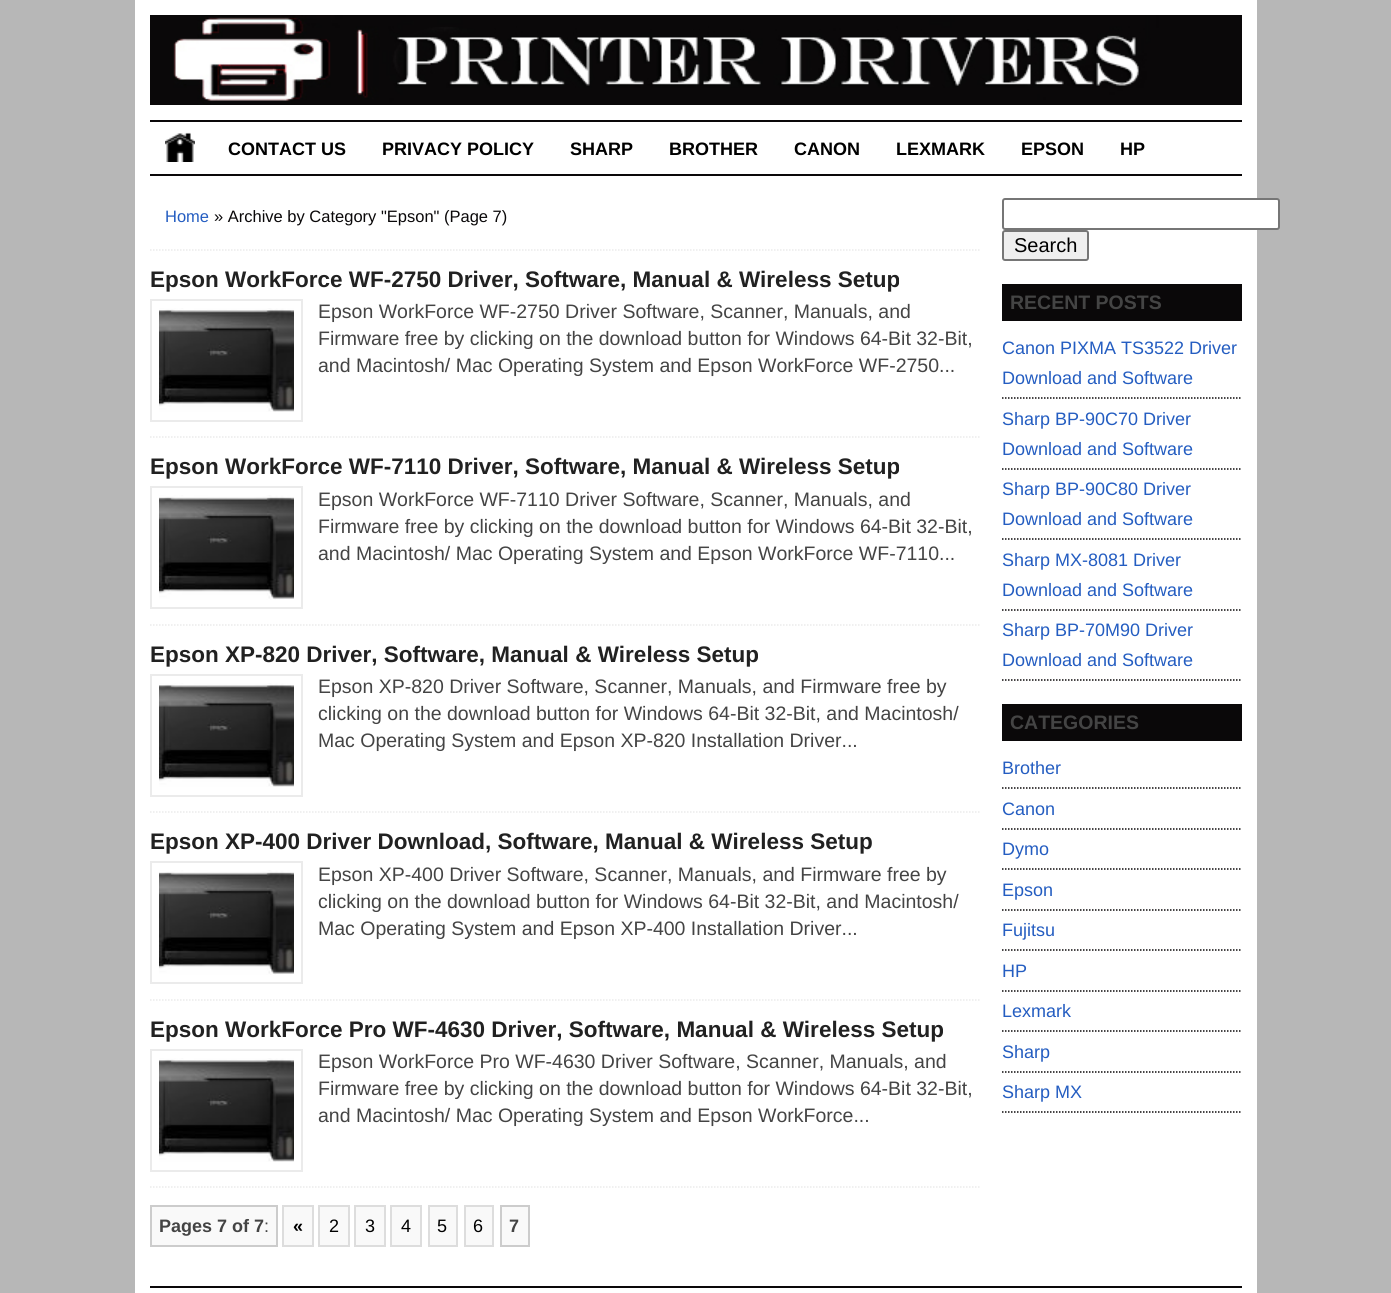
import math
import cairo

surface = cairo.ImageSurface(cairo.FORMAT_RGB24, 1391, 1293)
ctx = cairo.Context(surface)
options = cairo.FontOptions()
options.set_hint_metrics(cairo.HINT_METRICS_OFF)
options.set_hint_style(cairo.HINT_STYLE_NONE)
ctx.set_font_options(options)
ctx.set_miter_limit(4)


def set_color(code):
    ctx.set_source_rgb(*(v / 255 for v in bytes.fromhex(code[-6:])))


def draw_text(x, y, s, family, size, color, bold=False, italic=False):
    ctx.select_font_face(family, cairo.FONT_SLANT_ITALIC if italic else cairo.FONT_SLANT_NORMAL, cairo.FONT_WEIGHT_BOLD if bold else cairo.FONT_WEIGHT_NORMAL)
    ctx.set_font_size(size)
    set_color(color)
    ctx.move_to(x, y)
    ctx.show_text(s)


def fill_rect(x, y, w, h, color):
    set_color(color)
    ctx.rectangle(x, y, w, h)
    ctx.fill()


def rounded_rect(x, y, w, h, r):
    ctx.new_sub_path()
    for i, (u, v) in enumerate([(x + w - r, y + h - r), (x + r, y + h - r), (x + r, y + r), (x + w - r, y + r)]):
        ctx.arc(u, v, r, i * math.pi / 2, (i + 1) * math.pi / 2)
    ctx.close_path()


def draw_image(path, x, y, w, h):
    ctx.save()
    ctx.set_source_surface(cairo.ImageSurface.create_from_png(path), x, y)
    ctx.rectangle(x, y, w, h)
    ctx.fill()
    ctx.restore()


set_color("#b7b7b7")
ctx.paint()
fill_rect(135, 0, 1122, 1293, "#ffffff")
draw_image("assets/img1.png", 150, 15, 1092, 90)
fill_rect(150, 120, 1092, 2, "#0a0809")
fill_rect(150, 174, 1092, 2, "#0a0809")
draw_image("assets/img2.png", 165, 132, 30, 30)
draw_text(228, 155, "CONTACT US", "Liberation Sans", 18, "#000000", bold=True)
draw_text(382, 155, "PRIVACY POLICY", "Liberation Sans", 18, "#000000", bold=True)
draw_text(570, 155, "SHARP", "Liberation Sans", 18, "#000000", bold=True)
draw_text(669, 155, "BROTHER", "Liberation Sans", 18, "#000000", bold=True)
draw_text(794, 155, "CANON", "Liberation Sans", 18, "#000000", bold=True)
draw_text(896, 155, "LEXMARK", "Liberation Sans", 18, "#000000", bold=True)
draw_text(1021, 155, "EPSON", "Liberation Sans", 18, "#000000", bold=True)
draw_text(1120, 155, "HP", "Liberation Sans", 18, "#000000", bold=True)
draw_text(165, 222, "Home", "Liberation Sans", 16.5, "#245dc1")
draw_text(214, 222, "» Archive by Category \"Epson\" (Page 7)", "Liberation Sans", 16.5, "#0a0809")
ctx.new_path()
ctx.move_to(150, 250)
ctx.line_to(979.5, 250)
set_color("#ebebeb")
ctx.set_line_width(1.5)
ctx.set_dash([1.5, 1.5])
ctx.stroke()
ctx.new_path()
ctx.move_to(150, 437)
ctx.line_to(979.5, 437)
ctx.stroke()
draw_text(150, 287, "Epson WorkForce WF-2750 Driver, Software, Manual & Wireless Setup", "Liberation Sans", 22.5, "#212121", bold=True)
ctx.rectangle(151, 300, 151, 121)
set_color("#ebebeb")
ctx.set_line_width(2)
ctx.set_dash([])
ctx.stroke()
draw_image("assets/img3.png", 159, 308, 135, 104)
draw_text(318, 318, "Epson WorkForce WF-2750 Driver Software, Scanner, Manuals, and", "Liberation Sans", 19.5, "#444444")
draw_text(318, 345, "Firmware free by clicking on the download button for Windows 64-Bit 32-Bit,", "Liberation Sans", 19.5, "#444444")
draw_text(318, 372, "and Macintosh/ Mac Operating System and Epson WorkForce WF-2750...", "Liberation Sans", 19.5, "#444444")
ctx.new_path()
ctx.move_to(150, 625)
ctx.line_to(979.5, 625)
set_color("#ebebeb")
ctx.set_line_width(1.5)
ctx.set_dash([1.5, 1.5])
ctx.stroke()
draw_text(150, 474, "Epson WorkForce WF-7110 Driver, Software, Manual & Wireless Setup", "Liberation Sans", 22.5, "#212121", bold=True)
ctx.rectangle(151, 487, 151, 121)
set_color("#ebebeb")
ctx.set_line_width(2)
ctx.set_dash([])
ctx.stroke()
draw_image("assets/img4.png", 159, 495, 135, 105)
draw_text(318, 506, "Epson WorkForce WF-7110 Driver Software, Scanner, Manuals, and", "Liberation Sans", 19.5, "#444444")
draw_text(318, 533, "Firmware free by clicking on the download button for Windows 64-Bit 32-Bit,", "Liberation Sans", 19.5, "#444444")
draw_text(318, 560, "and Macintosh/ Mac Operating System and Epson WorkForce WF-7110...", "Liberation Sans", 19.5, "#444444")
ctx.new_path()
ctx.move_to(150, 812)
ctx.line_to(979.5, 812)
set_color("#ebebeb")
ctx.set_line_width(1.5)
ctx.set_dash([1.5, 1.5])
ctx.stroke()
draw_text(150, 662, "Epson XP-820 Driver, Software, Manual & Wireless Setup", "Liberation Sans", 22.5, "#212121", bold=True)
ctx.rectangle(151, 675, 151, 121)
set_color("#ebebeb")
ctx.set_line_width(2)
ctx.set_dash([])
ctx.stroke()
draw_image("assets/img3.png", 159, 683, 135, 104)
draw_text(318, 693, "Epson XP-820 Driver Software, Scanner, Manuals, and Firmware free by", "Liberation Sans", 19.5, "#444444")
draw_text(318, 720, "clicking on the download button for Windows 64-Bit 32-Bit, and Macintosh/", "Liberation Sans", 19.5, "#444444")
draw_text(318, 747, "Mac Operating System and Epson XP-820 Installation Driver...", "Liberation Sans", 19.5, "#444444")
ctx.new_path()
ctx.move_to(150, 1000)
ctx.line_to(979.5, 1000)
set_color("#ebebeb")
ctx.set_line_width(1.5)
ctx.set_dash([1.5, 1.5])
ctx.stroke()
draw_text(150, 849, "Epson XP-400 Driver Download, Software, Manual & Wireless Setup", "Liberation Sans", 22.5, "#212121", bold=True)
ctx.rectangle(151, 862, 151, 121)
set_color("#ebebeb")
ctx.set_line_width(2)
ctx.set_dash([])
ctx.stroke()
draw_image("assets/img4.png", 159, 870, 135, 105)
draw_text(318, 881, "Epson XP-400 Driver Software, Scanner, Manuals, and Firmware free by", "Liberation Sans", 19.5, "#444444")
draw_text(318, 908, "clicking on the download button for Windows 64-Bit 32-Bit, and Macintosh/", "Liberation Sans", 19.5, "#444444")
draw_text(318, 935, "Mac Operating System and Epson XP-400 Installation Driver...", "Liberation Sans", 19.5, "#444444")
ctx.new_path()
ctx.move_to(150, 1187)
ctx.line_to(979.5, 1187)
set_color("#ebebeb")
ctx.set_line_width(1.5)
ctx.set_dash([1.5, 1.5])
ctx.stroke()
draw_text(150, 1037, "Epson WorkForce Pro WF-4630 Driver, Software, Manual & Wireless Setup", "Liberation Sans", 22.5, "#212121", bold=True)
ctx.rectangle(151, 1050, 151, 121)
set_color("#ebebeb")
ctx.set_line_width(2)
ctx.set_dash([])
ctx.stroke()
draw_image("assets/img3.png", 159, 1058, 135, 104)
draw_text(318, 1068, "Epson WorkForce Pro WF-4630 Driver Software, Scanner, Manuals, and", "Liberation Sans", 19.5, "#444444")
draw_text(318, 1095, "Firmware free by clicking on the download button for Windows 64-Bit 32-Bit,", "Liberation Sans", 19.5, "#444444")
draw_text(318, 1122, "and Macintosh/ Mac Operating System and Epson WorkForce...", "Liberation Sans", 19.5, "#444444")
fill_rect(152, 1207, 124, 38, "#f9f9f9")
draw_text(159, 1232, "Pages 7 of 7", "Liberation Sans", 18, "#444444", bold=True)
fill_rect(150, 1205, 128, 2, "#cccccc")
fill_rect(150, 1245, 114, 2, "#cccccc")
fill_rect(150, 1205, 2, 42, "#cccccc")
fill_rect(276, 1205, 2, 42, "#cccccc")
fill_rect(264, 1245, 14, 2, "#cccccc")
draw_text(264, 1232, ":", "Liberation Sans", 18, "#444444")
set_color("#f9f9f9")
ctx.rectangle(283, 1206, 30, 40)
ctx.fill_preserve()
set_color("#dddddd")
ctx.stroke()
draw_text(293, 1232, "«", "Liberation Sans", 18, "#000000", bold=True)
set_color("#f9f9f9")
ctx.rectangle(319, 1206, 30, 40)
ctx.fill_preserve()
set_color("#dddddd")
ctx.stroke()
draw_text(329, 1232, "2", "Liberation Sans", 18, "#000000")
set_color("#f9f9f9")
ctx.rectangle(355, 1206, 30, 40)
ctx.fill_preserve()
set_color("#dddddd")
ctx.stroke()
draw_text(365, 1232, "3", "Liberation Sans", 18, "#000000")
set_color("#f9f9f9")
ctx.rectangle(391, 1206, 30, 40)
ctx.fill_preserve()
set_color("#dddddd")
ctx.stroke()
draw_text(401, 1232, "4", "Liberation Sans", 18, "#000000")
set_color("#f9f9f9")
ctx.rectangle(429, 1206, 28, 40)
ctx.fill_preserve()
set_color("#dddddd")
ctx.stroke()
draw_text(437, 1232, "5", "Liberation Sans", 18, "#000000")
set_color("#f9f9f9")
ctx.rectangle(465, 1206, 28, 40)
ctx.fill_preserve()
set_color("#dddddd")
ctx.stroke()
draw_text(473, 1232, "6", "Liberation Sans", 18, "#000000")
set_color("#f9f9f9")
ctx.rectangle(501, 1206, 28, 40)
ctx.fill_preserve()
set_color("#cccccc")
ctx.stroke()
draw_text(509, 1232, "7", "Liberation Sans", 18, "#444444", bold=True)
set_color("#ffffff")
rounded_rect(1003, 199, 276, 30, 2)
ctx.fill_preserve()
set_color("#767676")
ctx.stroke()
set_color("#efefef")
rounded_rect(1003, 231, 85, 29, 2)
ctx.fill_preserve()
set_color("#767676")
ctx.stroke()
draw_text(1014, 252, "Search", "Liberation Sans", 20, "#000000")
fill_rect(1002, 284, 240, 37, "#0a0809")
draw_text(1010, 309, "RECENT POSTS", "Liberation Sans", 19.5, "#444444", bold=True)
ctx.new_path()
ctx.move_to(1002, 398)
ctx.line_to(1242, 398)
set_color("#0a0809")
ctx.set_line_width(1.5)
ctx.set_dash([1.5, 1.5])
ctx.stroke()
draw_text(1002, 354, "Canon PIXMA TS3522 Driver", "Liberation Sans", 18, "#245dc1")
draw_text(1002, 384, "Download and Software", "Liberation Sans", 18, "#245dc1")
ctx.new_path()
ctx.move_to(1002, 469)
ctx.line_to(1242, 469)
set_color("#0a0809")
ctx.stroke()
draw_text(1002, 425, "Sharp BP-90C70 Driver", "Liberation Sans", 18, "#245dc1")
draw_text(1002, 455, "Download and Software", "Liberation Sans", 18, "#245dc1")
ctx.new_path()
ctx.move_to(1002, 539)
ctx.line_to(1242, 539)
set_color("#0a0809")
ctx.stroke()
draw_text(1002, 495, "Sharp BP-90C80 Driver", "Liberation Sans", 18, "#245dc1")
draw_text(1002, 525, "Download and Software", "Liberation Sans", 18, "#245dc1")
ctx.new_path()
ctx.move_to(1002, 610)
ctx.line_to(1242, 610)
set_color("#0a0809")
ctx.stroke()
draw_text(1002, 566, "Sharp MX-8081 Driver", "Liberation Sans", 18, "#245dc1")
draw_text(1002, 596, "Download and Software", "Liberation Sans", 18, "#245dc1")
ctx.new_path()
ctx.move_to(1002, 680)
ctx.line_to(1242, 680)
set_color("#0a0809")
ctx.stroke()
draw_text(1002, 636, "Sharp BP-70M90 Driver", "Liberation Sans", 18, "#245dc1")
draw_text(1002, 666, "Download and Software", "Liberation Sans", 18, "#245dc1")
fill_rect(1002, 704, 240, 37, "#0a0809")
draw_text(1010, 729, "CATEGORIES", "Liberation Sans", 19.5, "#444444", bold=True)
ctx.new_path()
ctx.move_to(1002, 788)
ctx.line_to(1242, 788)
set_color("#0a0809")
ctx.stroke()
draw_text(1002, 774, "Brother", "Liberation Sans", 18, "#245dc1")
ctx.new_path()
ctx.move_to(1002, 829)
ctx.line_to(1242, 829)
set_color("#0a0809")
ctx.stroke()
draw_text(1002, 815, "Canon", "Liberation Sans", 18, "#245dc1")
ctx.new_path()
ctx.move_to(1002, 869)
ctx.line_to(1242, 869)
set_color("#0a0809")
ctx.stroke()
draw_text(1002, 855, "Dymo", "Liberation Sans", 18, "#245dc1")
ctx.new_path()
ctx.move_to(1002, 910)
ctx.line_to(1242, 910)
set_color("#0a0809")
ctx.stroke()
draw_text(1002, 896, "Epson", "Liberation Sans", 18, "#245dc1")
ctx.new_path()
ctx.move_to(1002, 950)
ctx.line_to(1242, 950)
set_color("#0a0809")
ctx.stroke()
draw_text(1002, 936, "Fujitsu", "Liberation Sans", 18, "#245dc1")
ctx.new_path()
ctx.move_to(1002, 991)
ctx.line_to(1242, 991)
set_color("#0a0809")
ctx.stroke()
draw_text(1002, 977, "HP", "Liberation Sans", 18, "#245dc1")
ctx.new_path()
ctx.move_to(1002, 1031)
ctx.line_to(1242, 1031)
set_color("#0a0809")
ctx.stroke()
draw_text(1002, 1017, "Lexmark", "Liberation Sans", 18, "#245dc1")
ctx.new_path()
ctx.move_to(1002, 1072)
ctx.line_to(1242, 1072)
set_color("#0a0809")
ctx.stroke()
draw_text(1002, 1058, "Sharp", "Liberation Sans", 18, "#245dc1")
ctx.new_path()
ctx.move_to(1002, 1112)
ctx.line_to(1242, 1112)
set_color("#0a0809")
ctx.stroke()
draw_text(1002, 1098, "Sharp MX", "Liberation Sans", 18, "#245dc1")
fill_rect(150, 1286, 1092, 2, "#0a0809")
surface.write_to_png("output.png")
